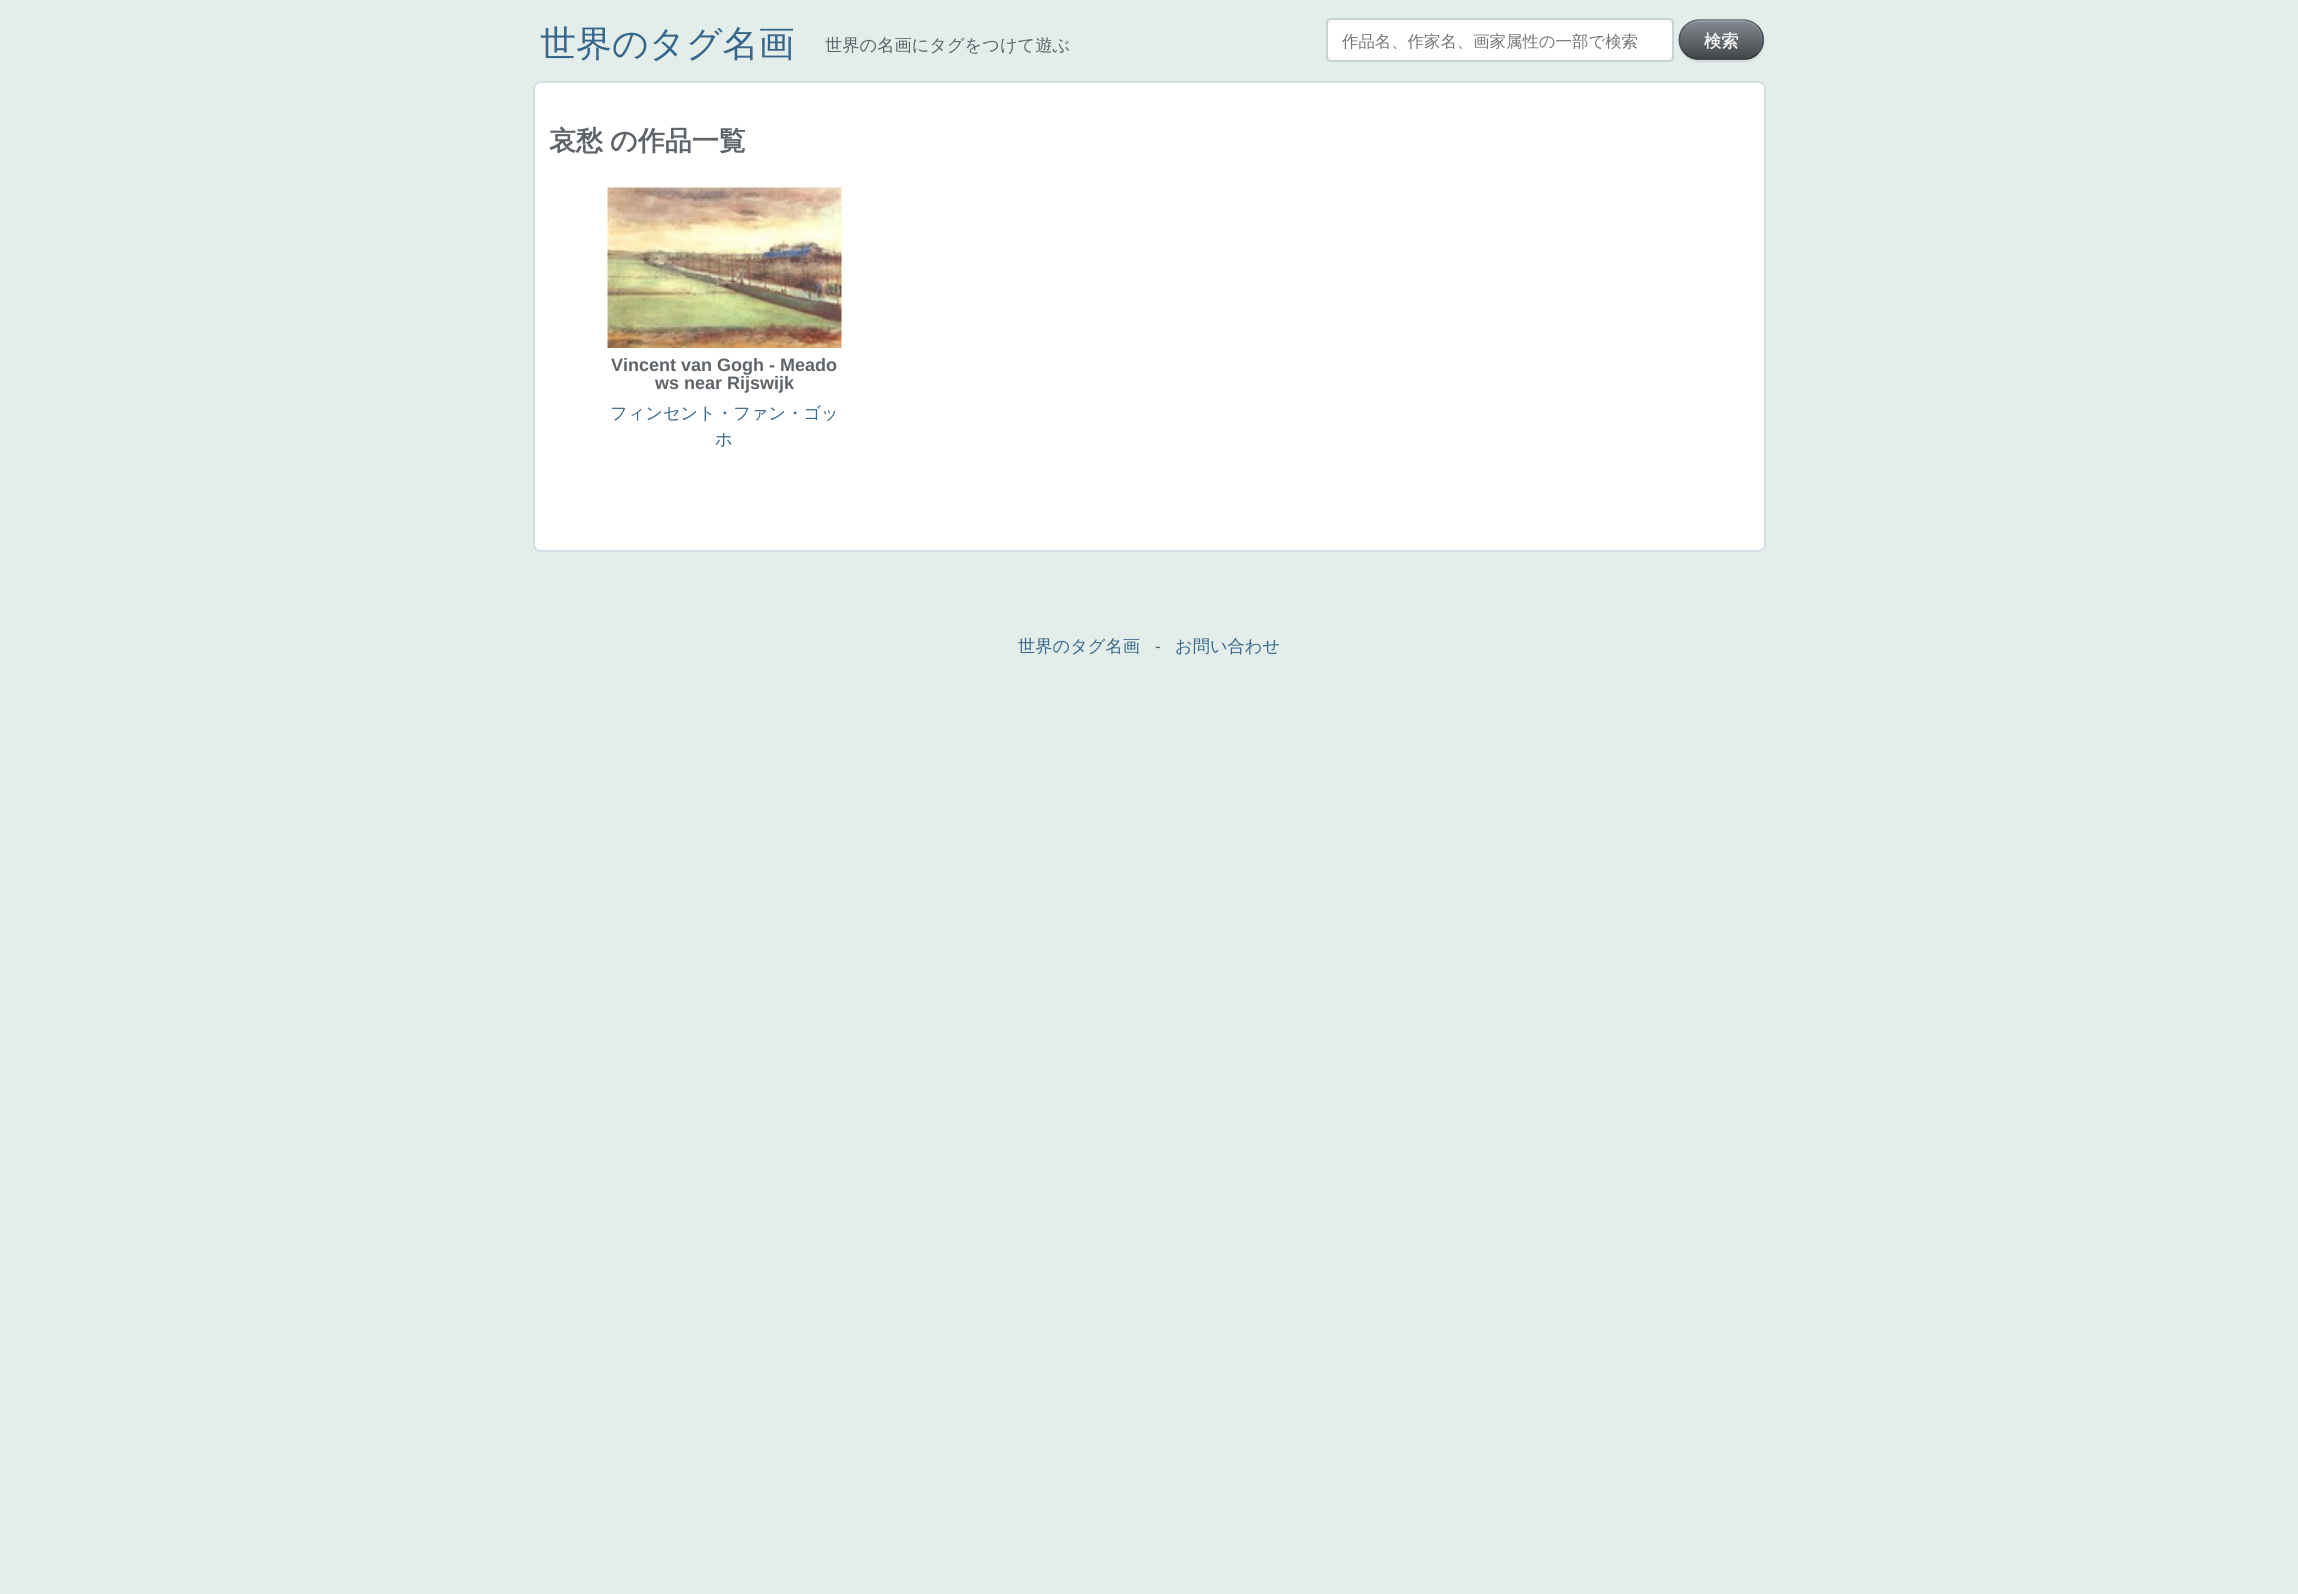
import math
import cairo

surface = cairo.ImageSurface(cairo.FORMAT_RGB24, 2298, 1594)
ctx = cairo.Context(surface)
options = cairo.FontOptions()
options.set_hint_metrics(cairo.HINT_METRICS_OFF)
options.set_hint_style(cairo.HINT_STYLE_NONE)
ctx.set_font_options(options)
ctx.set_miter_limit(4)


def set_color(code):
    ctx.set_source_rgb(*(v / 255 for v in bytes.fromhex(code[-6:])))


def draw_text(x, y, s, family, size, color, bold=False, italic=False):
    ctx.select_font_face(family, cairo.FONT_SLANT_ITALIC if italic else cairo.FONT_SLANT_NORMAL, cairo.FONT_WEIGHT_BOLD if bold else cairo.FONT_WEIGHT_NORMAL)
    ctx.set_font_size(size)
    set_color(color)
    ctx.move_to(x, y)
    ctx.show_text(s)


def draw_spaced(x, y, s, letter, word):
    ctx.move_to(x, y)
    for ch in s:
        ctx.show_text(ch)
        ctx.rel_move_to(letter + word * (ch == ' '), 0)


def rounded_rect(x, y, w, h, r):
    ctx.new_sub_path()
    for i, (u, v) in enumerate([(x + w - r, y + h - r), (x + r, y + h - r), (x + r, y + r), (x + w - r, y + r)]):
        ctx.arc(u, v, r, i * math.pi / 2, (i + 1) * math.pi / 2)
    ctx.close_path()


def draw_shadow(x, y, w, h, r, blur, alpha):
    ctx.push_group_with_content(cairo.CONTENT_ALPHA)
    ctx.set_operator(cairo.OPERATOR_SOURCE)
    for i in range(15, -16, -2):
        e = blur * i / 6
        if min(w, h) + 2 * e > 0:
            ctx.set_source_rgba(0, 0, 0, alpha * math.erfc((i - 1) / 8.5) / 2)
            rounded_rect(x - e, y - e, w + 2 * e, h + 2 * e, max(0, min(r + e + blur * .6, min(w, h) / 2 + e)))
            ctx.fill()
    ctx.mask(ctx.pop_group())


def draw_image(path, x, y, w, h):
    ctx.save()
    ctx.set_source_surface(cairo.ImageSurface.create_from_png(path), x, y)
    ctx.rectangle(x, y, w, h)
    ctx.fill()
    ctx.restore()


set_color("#e3ede9")
ctx.paint()
draw_text(540, 56, "世界のタグ名画", "WenQuanYi Zen Hei Medium", 36, "#38678b")
draw_text(825, 51, "世界の名画にタグをつけて遊ぶ", "WenQuanYi Zen Hei Medium", 17.25, "#5e6469")
set_color("#ffffff")
rounded_rect(1327, 19, 346, 42, 4)
ctx.fill_preserve()
set_color("#c9d0d6")
ctx.stroke()
draw_text(1342, 47, "作品名、作家名、画家属性の一部で検索", "WenQuanYi Zen Hei Medium", 16.4, "#757575")
set_color("#000000")
draw_shadow(1679, 21, 85, 41, 20.5, 1, 0.1)
ctx.save()
rounded_rect(1679, 20, 85, 40, 20)
ctx.clip()
gradient = cairo.LinearGradient(1721, 21, 1721, 59)
gradient.add_color_stop_rgba(0, 0.514, 0.541, 0.565, 1)
gradient.add_color_stop_rgba(1, 0.255, 0.271, 0.286, 1)
ctx.set_source(gradient)
ctx.rectangle(1679, 21, 85, 38)
ctx.fill()
gradient = cairo.LinearGradient(1721, 59, 1721, 96)
gradient.add_color_stop_rgba(0, 0.514, 0.541, 0.565, 1)
gradient.add_color_stop_rgba(1, 0.255, 0.271, 0.286, 1)
ctx.set_source(gradient)
ctx.rectangle(1693, 59, 57, 1)
ctx.fill()
ctx.restore()
ctx.set_source_rgba(1, 1, 1, 0.2)
ctx.new_path()
ctx.move_to(1699, 22)
ctx.line_to(1744, 22)
ctx.curve_to(1754, 22, 1762, 31, 1762, 41)
ctx.curve_to(1762, 45, 1761, 48, 1759, 51)
ctx.curve_to(1762, 48, 1763, 44, 1763, 40)
ctx.curve_to(1763, 30, 1754, 21, 1744, 21)
ctx.line_to(1699, 21)
ctx.curve_to(1689, 21, 1680, 30, 1680, 40)
ctx.line_to(1680, 41)
ctx.curve_to(1680, 31, 1688, 22, 1699, 22)
ctx.close_path()
ctx.fill()
ctx.new_path()
ctx.move_to(1685, 26)
ctx.curve_to(1688.5, 22.5, 1693.5, 20, 1699, 20)
ctx.line_to(1744, 20)
ctx.curve_to(1749, 20, 1754, 22.5, 1757.5, 26)
set_color("#616a71")
ctx.set_line_width(1.5)
ctx.stroke()
ctx.new_path()
ctx.move_to(1757.5, 26)
ctx.curve_to(1765, 33.5, 1765, 46, 1757.5, 53.5)
set_color("#484e53")
ctx.stroke()
ctx.new_path()
ctx.move_to(1757.5, 53.5)
ctx.curve_to(1754, 57, 1749, 59, 1744, 59)
ctx.line_to(1699, 59)
ctx.curve_to(1693.5, 59, 1688.5, 57, 1685, 53.5)
set_color("#363b3f")
ctx.stroke()
ctx.new_path()
ctx.move_to(1685, 53.5)
ctx.curve_to(1677.5, 46, 1677.5, 33.5, 1685, 26)
set_color("#484e53")
ctx.stroke()
draw_text(1704, 47, "検索", "WenQuanYi Zen Hei", 17.25, "#efefef", bold=True)
set_color("#ffffff")
rounded_rect(534, 82, 1231, 469, 7)
ctx.fill_preserve()
set_color("#d6dee5")
ctx.set_line_width(2)
ctx.stroke()
ctx.set_font_size(27)
set_color("#5e6469")
draw_spaced(549, 150, "哀愁 の作品一覧", 0, -1)
draw_image("assets/img1.png", 607, 187, 235, 161)
draw_text(611, 371, "Vincent van Gogh - Meado", "Liberation Sans", 18, "#5e6469", bold=True)
draw_text(655, 389, "ws near Rijswijk", "Liberation Sans", 18, "#5e6469", bold=True)
draw_text(610, 419, "フィンセント・ファン・ゴッ", "WenQuanYi Zen Hei Medium", 17.25, "#38678b")
draw_text(715, 445, "ホ", "WenQuanYi Zen Hei Medium", 17.25, "#38678b")
draw_text(1018, 652, "世界のタグ名画", "WenQuanYi Zen Hei Medium", 17.25, "#38678b")
draw_text(1155, 652, "-", "Liberation Sans", 17.25, "#5e6469")
draw_text(1175, 652, "お問い合わせ", "WenQuanYi Zen Hei Medium", 17.25, "#38678b")
surface.write_to_png("output.png")
